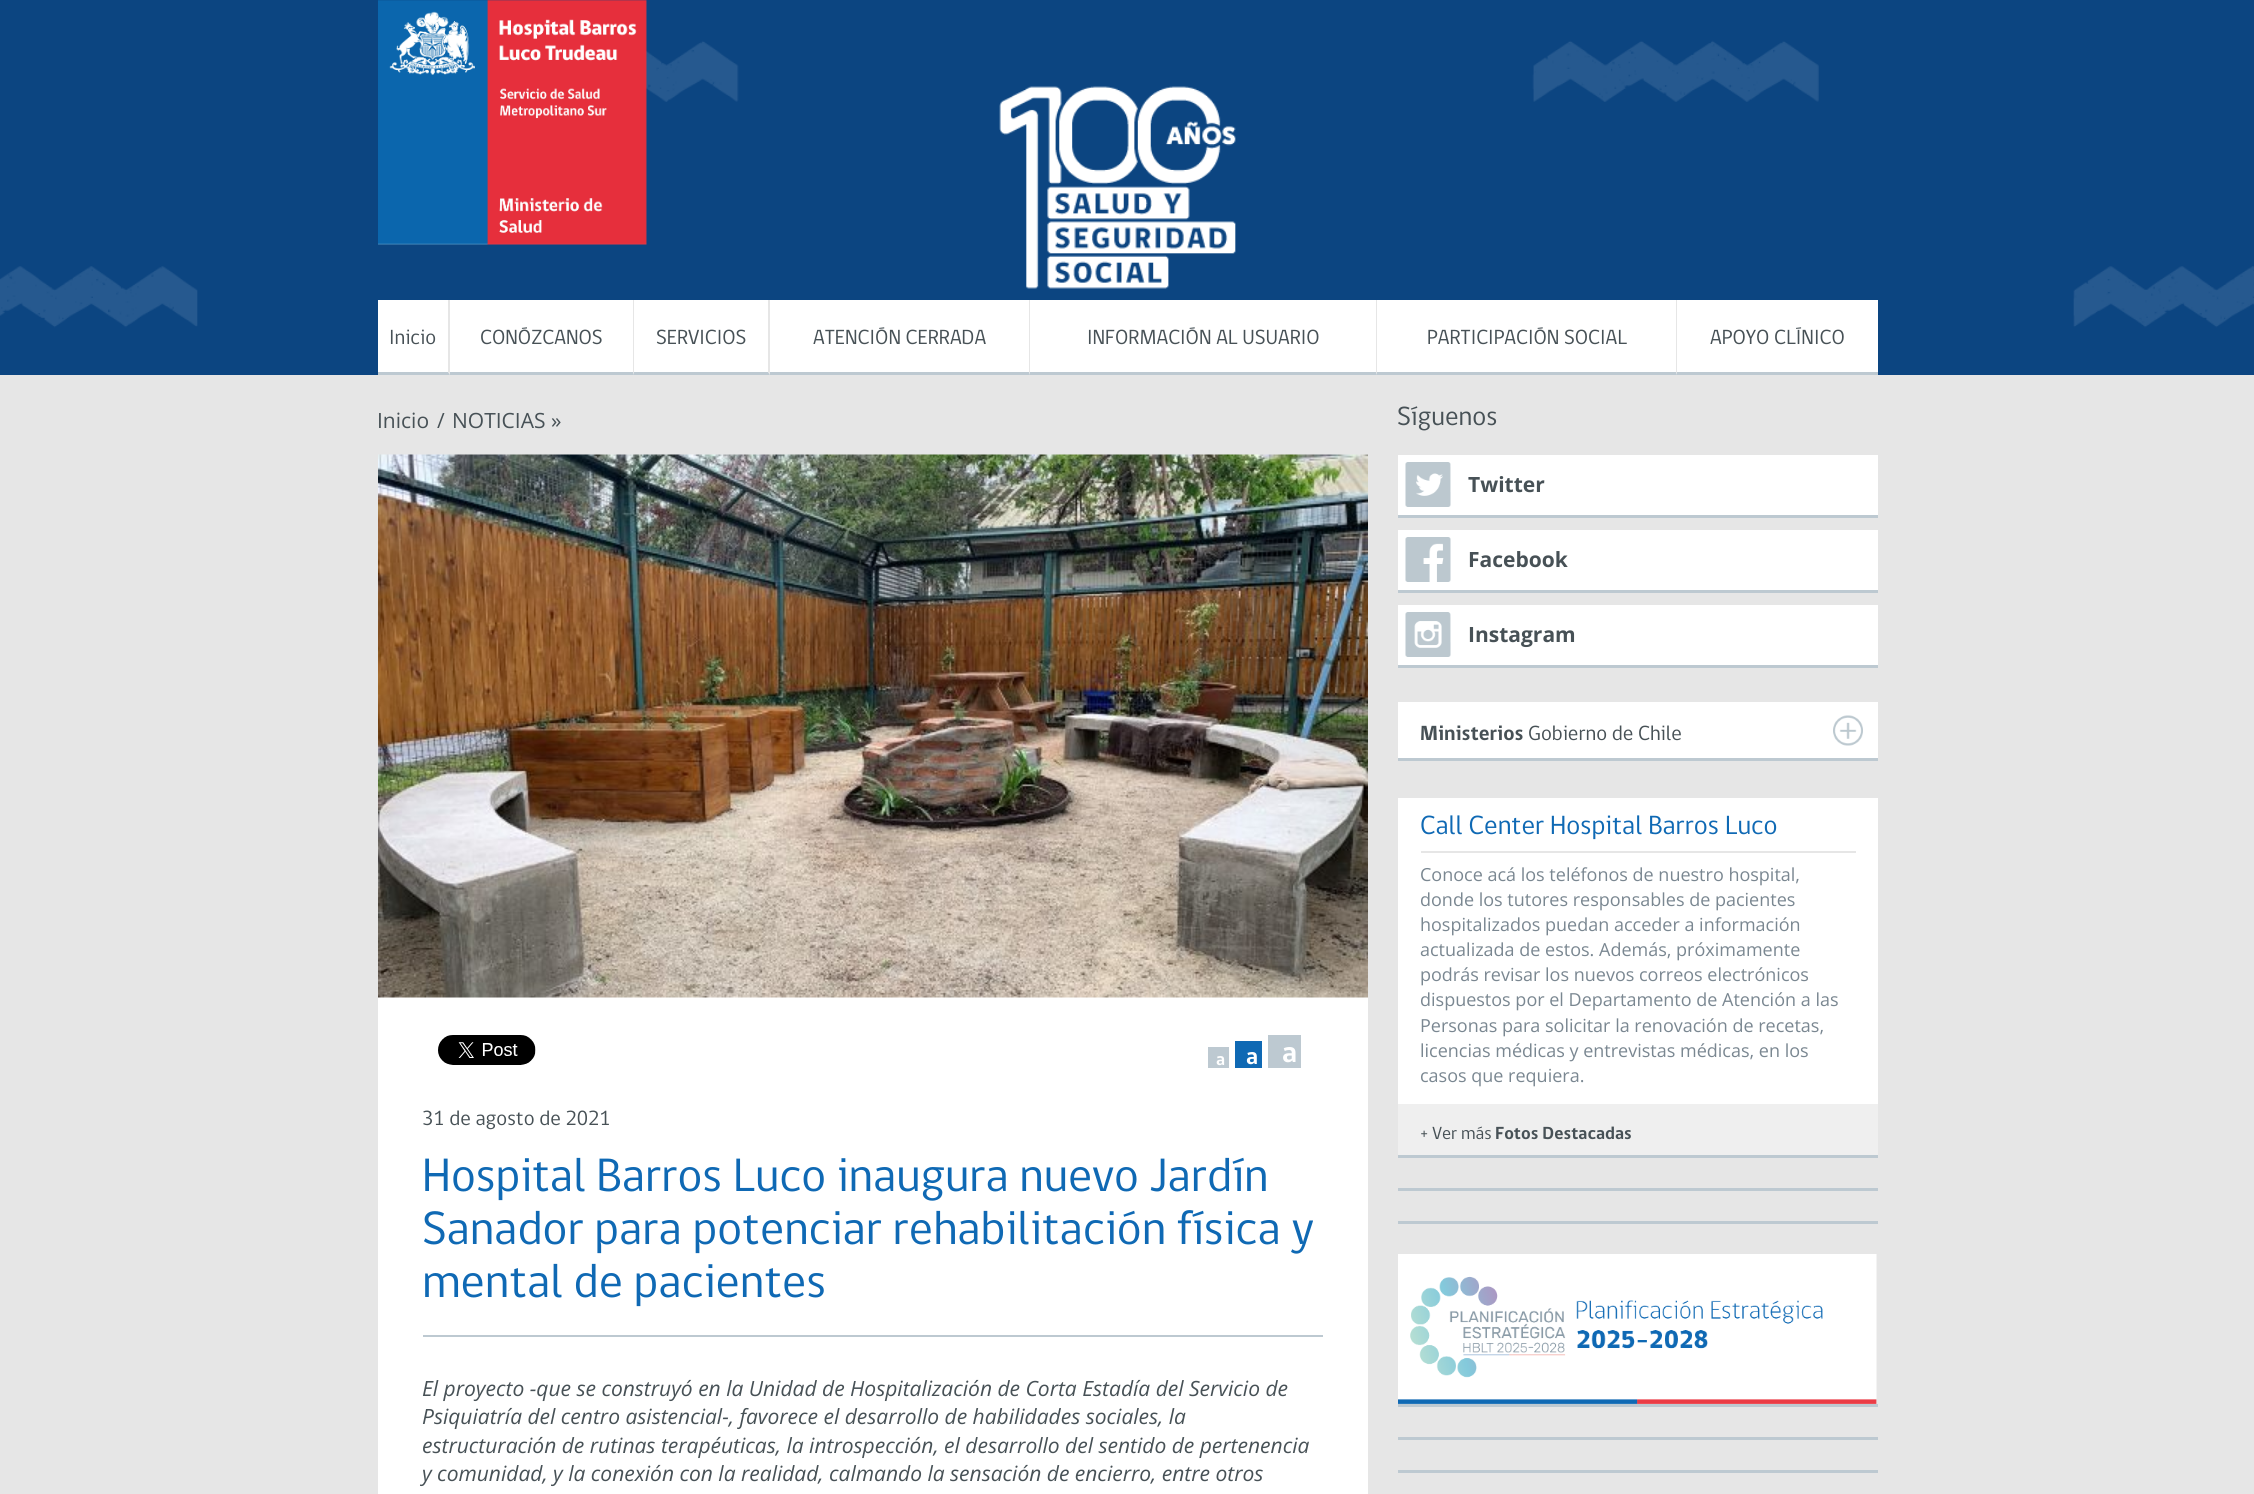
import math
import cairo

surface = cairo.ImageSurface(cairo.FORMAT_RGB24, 2254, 1494)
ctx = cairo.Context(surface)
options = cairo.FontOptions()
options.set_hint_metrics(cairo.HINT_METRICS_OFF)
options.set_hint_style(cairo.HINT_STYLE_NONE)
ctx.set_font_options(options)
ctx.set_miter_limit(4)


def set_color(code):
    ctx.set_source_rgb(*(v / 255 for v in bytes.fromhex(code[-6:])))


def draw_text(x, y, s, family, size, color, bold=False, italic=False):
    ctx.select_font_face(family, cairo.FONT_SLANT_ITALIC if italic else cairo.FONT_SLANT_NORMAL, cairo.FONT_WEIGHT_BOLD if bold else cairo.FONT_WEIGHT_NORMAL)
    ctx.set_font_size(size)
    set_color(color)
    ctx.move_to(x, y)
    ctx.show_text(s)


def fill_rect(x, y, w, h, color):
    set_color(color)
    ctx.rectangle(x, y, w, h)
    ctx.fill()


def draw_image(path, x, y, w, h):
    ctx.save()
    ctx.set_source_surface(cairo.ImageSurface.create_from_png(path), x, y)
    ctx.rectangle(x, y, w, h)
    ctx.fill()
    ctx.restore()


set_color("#e6e6e6")
ctx.paint()
draw_image("assets/img1.png", 0, 0, 2254, 375)
draw_image("assets/img2.png", 378, 0, 269, 245)
fill_rect(378, 300, 1500, 75, "#ffffff")
set_color("#e6e6e6")
ctx.new_path()
ctx.move_to(450, 300)
ctx.line_to(450, 375)
ctx.line_to(448, 372)
ctx.line_to(448, 300)
ctx.close_path()
ctx.fill()
set_color("#bdc9d1")
ctx.new_path()
ctx.move_to(450, 375)
ctx.line_to(378, 375)
ctx.line_to(378, 372)
ctx.line_to(448, 372)
ctx.close_path()
ctx.fill()
draw_text(389, 344, "Inicio", "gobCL", 21, "#475156")
set_color("#e6e6e6")
ctx.new_path()
ctx.move_to(634, 300)
ctx.line_to(634, 375)
ctx.line_to(633, 372)
ctx.line_to(633, 300)
ctx.close_path()
ctx.fill()
set_color("#bdc9d1")
ctx.new_path()
ctx.move_to(634, 375)
ctx.line_to(450, 375)
ctx.line_to(450, 372)
ctx.line_to(633, 372)
ctx.close_path()
ctx.fill()
draw_text(480, 344, "CONÓZCANOS", "gobCL", 21, "#475156")
set_color("#e6e6e6")
ctx.new_path()
ctx.move_to(770, 300)
ctx.line_to(770, 375)
ctx.line_to(768, 372)
ctx.line_to(768, 300)
ctx.close_path()
ctx.fill()
set_color("#bdc9d1")
ctx.new_path()
ctx.move_to(770, 375)
ctx.line_to(634, 375)
ctx.line_to(634, 372)
ctx.line_to(768, 372)
ctx.close_path()
ctx.fill()
draw_text(656, 344, "SERVICIOS", "gobCL", 21, "#475156")
set_color("#e6e6e6")
ctx.new_path()
ctx.move_to(1030, 300)
ctx.line_to(1030, 375)
ctx.line_to(1029, 372)
ctx.line_to(1029, 300)
ctx.close_path()
ctx.fill()
set_color("#bdc9d1")
ctx.new_path()
ctx.move_to(1030, 375)
ctx.line_to(770, 375)
ctx.line_to(770, 372)
ctx.line_to(1029, 372)
ctx.close_path()
ctx.fill()
draw_text(813, 344, "ATENCIÓN CERRADA", "gobCL", 21, "#475156")
set_color("#e6e6e6")
ctx.new_path()
ctx.move_to(1377, 300)
ctx.line_to(1377, 375)
ctx.line_to(1376, 372)
ctx.line_to(1376, 300)
ctx.close_path()
ctx.fill()
set_color("#bdc9d1")
ctx.new_path()
ctx.move_to(1377, 375)
ctx.line_to(1030, 375)
ctx.line_to(1030, 372)
ctx.line_to(1376, 372)
ctx.close_path()
ctx.fill()
draw_text(1087, 344, "INFORMACIÓN AL USUARIO", "gobCL", 21, "#475156")
set_color("#e6e6e6")
ctx.new_path()
ctx.move_to(1677, 300)
ctx.line_to(1677, 375)
ctx.line_to(1676, 372)
ctx.line_to(1676, 300)
ctx.close_path()
ctx.fill()
set_color("#bdc9d1")
ctx.new_path()
ctx.move_to(1677, 375)
ctx.line_to(1377, 375)
ctx.line_to(1377, 372)
ctx.line_to(1676, 372)
ctx.close_path()
ctx.fill()
draw_text(1427, 344, "PARTICIPACIÓN SOCIAL", "gobCL", 21, "#475156")
fill_rect(1677, 372, 201, 3, "#bdc9d1")
draw_text(1710, 344, "APOYO CLÍNICO", "gobCL", 21, "#475156")
draw_text(377, 428, "Inicio", "Open Sans", 21, "#475156")
draw_text(437, 428, "/", "Open Sans", 21, "#475156")
draw_text(452, 428, "NOTICIAS »", "Open Sans", 21, "#475156")
fill_rect(378, 997, 990, 497, "#ffffff")
draw_image("assets/img3.png", 378, 454, 990, 544)
draw_image("assets/img4.png", 438, 1035, 98, 30)
fill_rect(1208, 1047, 21, 21, "#bdc9d1")
draw_text(1216, 1065, "a", "gobCL", 18, "#ffffff", bold=True)
fill_rect(1235, 1041, 27, 27, "#0f69b4")
draw_text(1246, 1064, "a", "gobCL", 24, "#ffffff", bold=True)
fill_rect(1268, 1035, 33, 33, "#bdc9d1")
draw_text(1282, 1062, "a", "gobCL", 30, "#ffffff", bold=True)
draw_text(422, 1125, "31 de agosto de 2021", "gobCL", 21, "#475156")
fill_rect(423, 1335, 900, 2, "#bdc9d1")
draw_text(422, 1191, "Hospital Barros Luco inaugura nuevo Jardín", "gobCL", 48, "#0f69b4")
draw_text(422, 1244, "Sanador para potenciar rehabilitación física y", "gobCL", 48, "#0f69b4")
draw_text(422, 1297, "mental de pacientes", "gobCL", 48, "#0f69b4")
draw_text(422, 1396, "El proyecto -que se construyó en la Unidad de Hospitalización de Corta Estadía del Servicio de", "Open Sans", 21, "#475156", italic=True)
draw_text(422, 1424, "Psiquiatría del centro asistencial-, favorece el desarrollo de habilidades sociales, la", "Open Sans", 21, "#475156", italic=True)
draw_text(422, 1453, "estructuración de rutinas terapéuticas, la introspección, el desarrollo del sentido de pertenencia", "Open Sans", 21, "#475156", italic=True)
draw_text(422, 1481, "y comunidad, y la conexión con la realidad, calmando la sensación de encierro, entre otros", "Open Sans", 21, "#475156", italic=True)
draw_text(1397, 425, "Síguenos", "gobCL", 27, "#475156")
fill_rect(1398, 455, 480, 60, "#ffffff")
fill_rect(1398, 515, 480, 3, "#bdc9d1")
draw_image("assets/img5.png", 1405, 462, 46, 45)
draw_text(1468, 492, "Twitter", "Open Sans", 21, "#475156", bold=True)
fill_rect(1398, 530, 480, 60, "#ffffff")
fill_rect(1398, 590, 480, 3, "#bdc9d1")
draw_image("assets/img6.png", 1405, 537, 46, 45)
draw_text(1468, 567, "Facebook", "Open Sans", 21, "#475156", bold=True)
fill_rect(1398, 605, 480, 60, "#ffffff")
fill_rect(1398, 665, 480, 3, "#bdc9d1")
draw_image("assets/img7.png", 1405, 612, 46, 45)
draw_text(1468, 642, "Instagram", "Open Sans", 21, "#475156", bold=True)
fill_rect(1398, 702, 480, 56, "#ffffff")
fill_rect(1398, 758, 480, 3, "#bdc9d1")
draw_text(1420, 740, "Ministerios", "gobCL", 21, "#475156", bold=True)
draw_text(1528, 740, "Gobierno de Chile", "gobCL", 21, "#475156")
draw_image("assets/img8.png", 1833, 715, 30, 31)
fill_rect(1398, 798, 480, 306, "#ffffff")
fill_rect(1421, 851, 435, 2, "#e6e6e6")
draw_text(1420, 834, "Call Center Hospital Barros Luco", "gobCL", 27, "#0f69b4")
draw_text(1420, 881, "Conoce acá los teléfonos de nuestro hospital,", "Open Sans", 18, "#7a8791")
draw_text(1420, 906, "donde los tutores responsables de pacientes", "Open Sans", 18, "#7a8791")
draw_text(1420, 931, "hospitalizados puedan acceder a información", "Open Sans", 18, "#7a8791")
draw_text(1420, 956, "actualizada de estos. Además, próximamente", "Open Sans", 18, "#7a8791")
draw_text(1420, 981, "podrás revisar los nuevos correos electrónicos", "Open Sans", 18, "#7a8791")
draw_text(1420, 1006, "dispuestos por el Departamento de Atención a las", "Open Sans", 18, "#7a8791")
draw_text(1420, 1032, "Personas para solicitar la renovación de recetas,", "Open Sans", 18, "#7a8791")
draw_text(1420, 1057, "licencias médicas y entrevistas médicas, en los", "Open Sans", 18, "#7a8791")
draw_text(1420, 1082, "casos que requiera.", "Open Sans", 18, "#7a8791")
fill_rect(1398, 1104, 480, 51, "#efefef")
fill_rect(1398, 1155, 480, 3, "#bdc9d1")
draw_text(1420, 1139, "+ Ver más", "gobCL", 18, "#475156")
draw_text(1495, 1139, "Fotos Destacadas", "gobCL", 18, "#475156", bold=True)
fill_rect(1398, 1188, 480, 3, "#bdc9d1")
fill_rect(1398, 1221, 480, 3, "#bdc9d1")
fill_rect(1398, 1404, 480, 3, "#bdc9d1")
draw_image("assets/img9.png", 1398, 1254, 479, 150)
fill_rect(1398, 1437, 480, 3, "#bdc9d1")
fill_rect(1398, 1470, 480, 3, "#bdc9d1")
surface.write_to_png("output.png")
